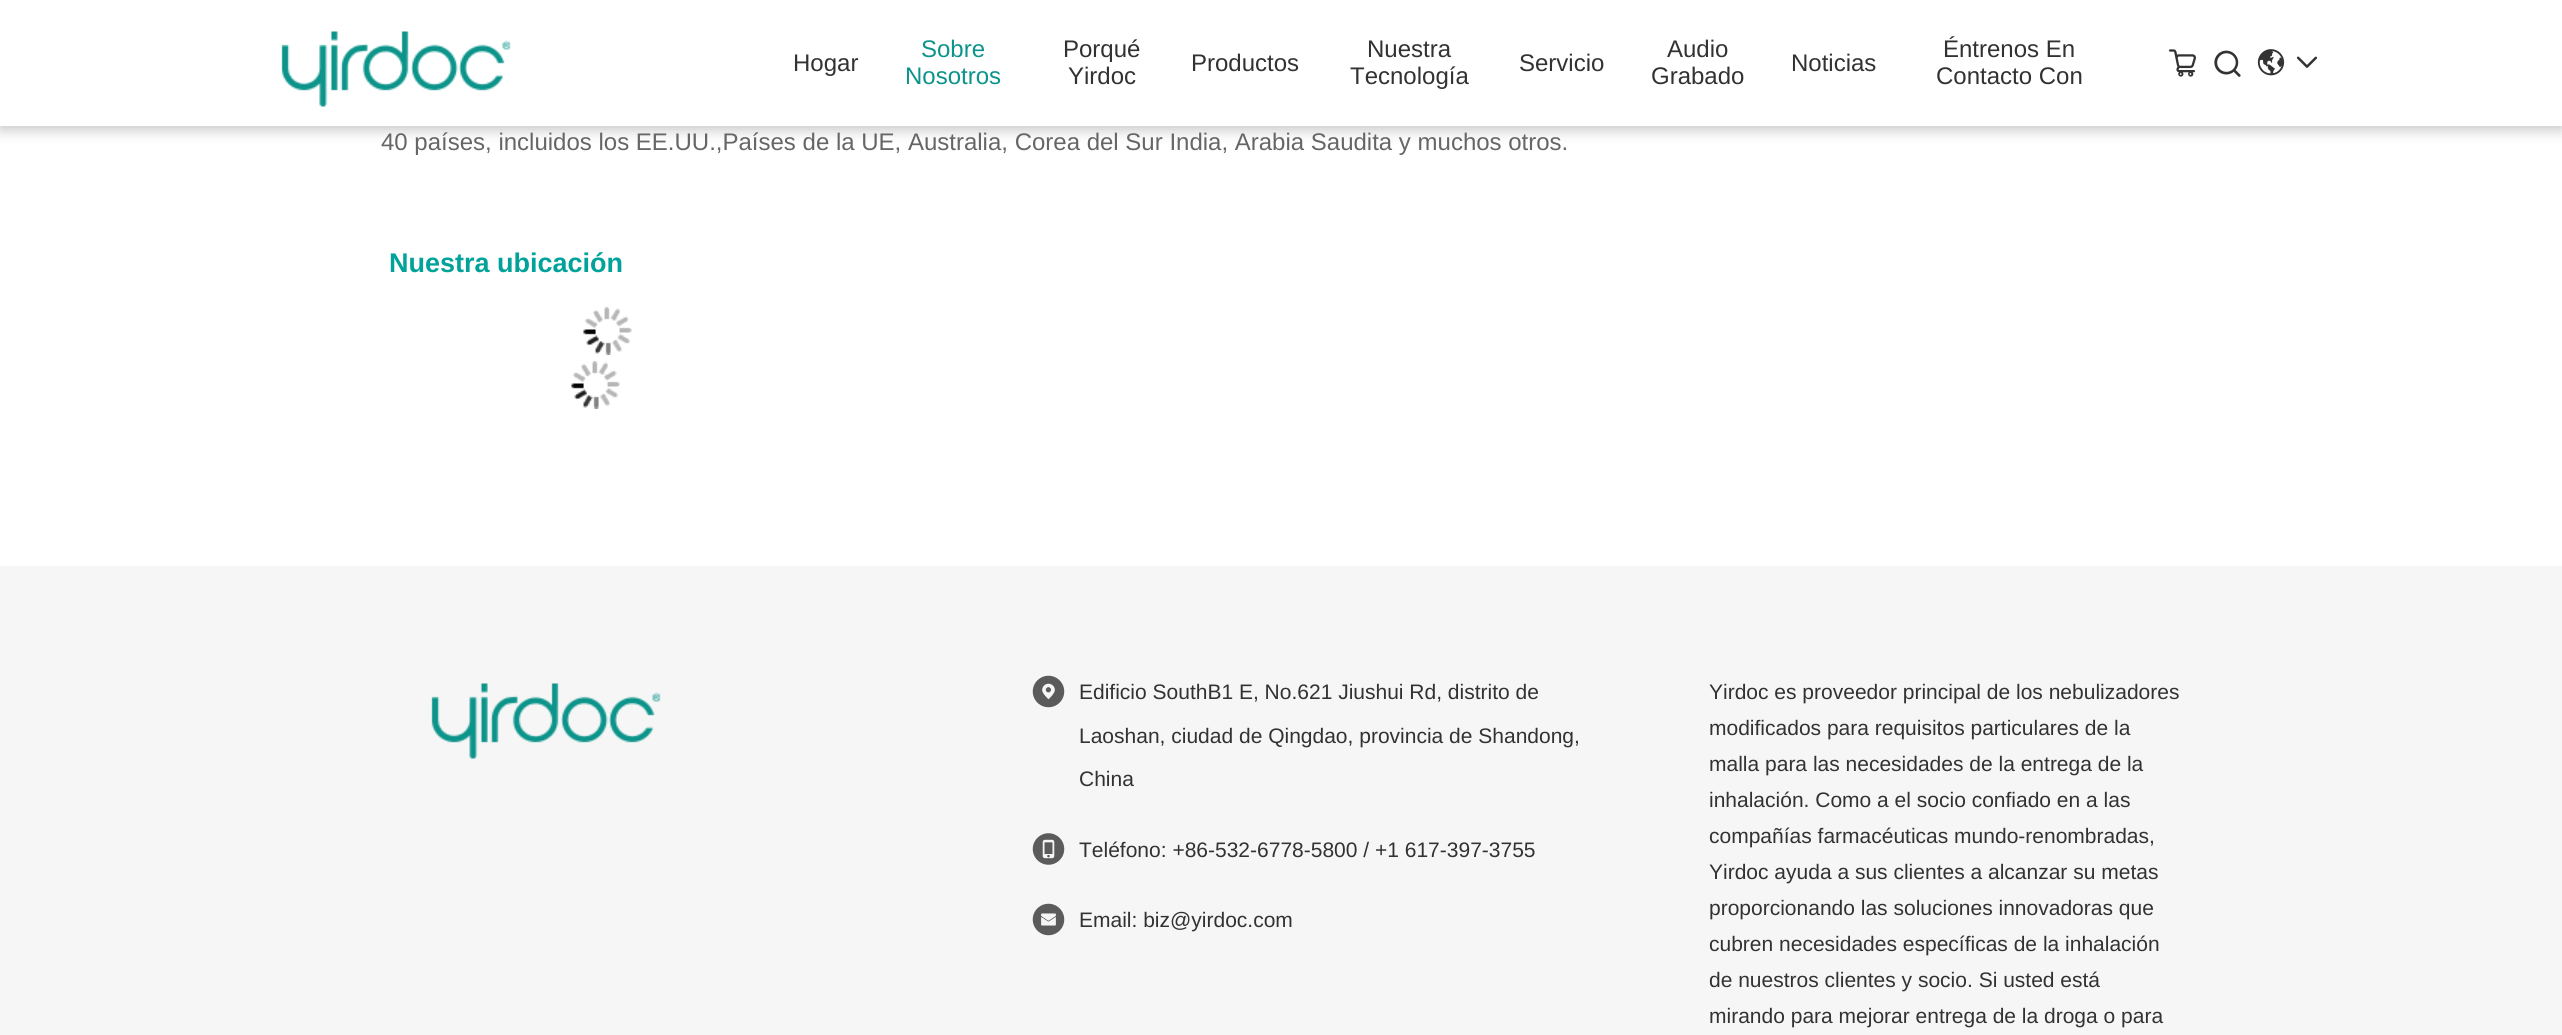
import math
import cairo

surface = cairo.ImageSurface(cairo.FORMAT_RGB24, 2562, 1035)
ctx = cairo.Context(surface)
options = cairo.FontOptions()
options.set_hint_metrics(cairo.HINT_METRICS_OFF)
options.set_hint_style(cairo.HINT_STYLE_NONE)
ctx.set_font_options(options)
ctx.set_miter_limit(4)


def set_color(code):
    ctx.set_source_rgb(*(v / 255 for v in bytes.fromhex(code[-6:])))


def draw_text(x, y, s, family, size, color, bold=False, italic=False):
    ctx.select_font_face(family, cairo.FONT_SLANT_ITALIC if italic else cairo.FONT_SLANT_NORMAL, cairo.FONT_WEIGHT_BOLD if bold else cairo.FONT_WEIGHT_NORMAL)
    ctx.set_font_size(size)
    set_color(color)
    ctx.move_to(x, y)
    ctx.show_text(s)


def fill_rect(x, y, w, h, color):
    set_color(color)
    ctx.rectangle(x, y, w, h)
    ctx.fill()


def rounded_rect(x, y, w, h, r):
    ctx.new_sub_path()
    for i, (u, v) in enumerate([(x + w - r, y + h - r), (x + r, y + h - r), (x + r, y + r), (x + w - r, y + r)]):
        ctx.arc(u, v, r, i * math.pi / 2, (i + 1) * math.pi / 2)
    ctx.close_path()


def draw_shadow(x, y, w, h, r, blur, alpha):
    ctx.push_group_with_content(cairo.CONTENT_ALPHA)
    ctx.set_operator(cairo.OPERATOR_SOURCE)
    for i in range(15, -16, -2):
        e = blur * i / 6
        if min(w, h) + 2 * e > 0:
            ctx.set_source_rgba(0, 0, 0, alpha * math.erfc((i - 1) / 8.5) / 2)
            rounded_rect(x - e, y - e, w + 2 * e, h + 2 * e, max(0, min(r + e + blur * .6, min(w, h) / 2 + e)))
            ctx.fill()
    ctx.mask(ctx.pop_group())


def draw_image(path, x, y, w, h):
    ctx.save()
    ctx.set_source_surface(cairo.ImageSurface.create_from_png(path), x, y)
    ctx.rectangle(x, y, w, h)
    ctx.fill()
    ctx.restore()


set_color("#ffffff")
ctx.paint()
set_color("#000000")
draw_shadow(0, 3, 2562, 126, 0, 7.5, 0.25)
fill_rect(0, 0, 2562, 126, "#ffffff")
draw_image("assets/img1.png", 281, 31, 230, 76)
draw_text(793, 71, "Hogar", "Liberation Sans", 24, "#323232")
draw_text(921, 57, "Sobre", "Liberation Sans", 24, "#0c948a")
draw_text(905, 84, "Nosotros", "Liberation Sans", 24, "#0c948a")
draw_text(1063, 57, "Porqué", "Liberation Sans", 24, "#323232")
draw_text(1068, 84, "Yirdoc", "Liberation Sans", 24, "#323232")
draw_text(1191, 71, "Productos", "Liberation Sans", 24, "#323232")
draw_text(1367, 57, "Nuestra", "Liberation Sans", 24, "#323232")
draw_text(1350, 84, "Tecnología", "Liberation Sans", 24, "#323232")
draw_text(1519, 71, "Servicio", "Liberation Sans", 24, "#323232")
draw_text(1667, 57, "Audio", "Liberation Sans", 24, "#323232")
draw_text(1651, 84, "Grabado", "Liberation Sans", 24, "#323232")
draw_text(1791, 71, "Noticias", "Liberation Sans", 24, "#323232")
draw_text(1943, 57, "Éntrenos En", "Liberation Sans", 24, "#323232")
draw_text(1936, 84, "Contacto Con", "Liberation Sans", 24, "#323232")
draw_image("assets/img2.png", 2169, 49, 27, 28)
draw_image("assets/img3.png", 2214, 50, 27, 27)
draw_image("assets/img4.png", 2257, 49, 28, 27)
draw_image("assets/img5.png", 2296, 56, 21, 12)
draw_text(381, 150, "40 países, incluidos los EE.UU.,Países de la UE, Australia, Corea del Sur India, Arabia Saudita y muchos otros.", "Liberation Sans", 24, "#666666")
draw_text(389, 272, "Nuestra ubicación", "Liberation Sans", 27, "#00a29a", bold=True)
draw_image("assets/img6.png", 583, 307, 49, 48)
draw_image("assets/img6.png", 571, 361, 49, 48)
fill_rect(0, 566, 2562, 469, "#f6f6f6")
draw_image("assets/img7.png", 431, 683, 230, 76)
draw_image("assets/img8.png", 1032, 675, 33, 33)
draw_text(1079, 699, "Edificio SouthB1 E, No.621 Jiushui Rd, distrito de", "Liberation Sans", 21, "#323232")
draw_text(1079, 743, "Laoshan, ciudad de Qingdao, provincia de Shandong,", "Liberation Sans", 21, "#323232")
draw_text(1079, 786, "China", "Liberation Sans", 21, "#323232")
draw_image("assets/img9.png", 1032, 833, 33, 32)
draw_text(1079, 857, "Teléfono: +86-532-6778-5800 / +1 617-397-3755", "Liberation Sans", 21, "#323232")
draw_image("assets/img10.png", 1032, 903, 33, 33)
draw_text(1079, 927, "Email: biz@yirdoc.com", "Liberation Sans", 21, "#323232")
draw_text(1709, 699, "Yirdoc es proveedor principal de los nebulizadores", "Liberation Sans", 21, "#323232")
draw_text(1709, 735, "modificados para requisitos particulares de la", "Liberation Sans", 21, "#323232")
draw_text(1709, 771, "malla para las necesidades de la entrega de la", "Liberation Sans", 21, "#323232")
draw_text(1709, 807, "inhalación. Como a el socio confiado en a las", "Liberation Sans", 21, "#323232")
draw_text(1709, 843, "compañías farmacéuticas mundo-renombradas,", "Liberation Sans", 21, "#323232")
draw_text(1709, 879, "Yirdoc ayuda a sus clientes a alcanzar su metas", "Liberation Sans", 21, "#323232")
draw_text(1709, 915, "proporcionando las soluciones innovadoras que", "Liberation Sans", 21, "#323232")
draw_text(1709, 951, "cubren necesidades específicas de la inhalación", "Liberation Sans", 21, "#323232")
draw_text(1709, 987, "de nuestros clientes y socio. Si usted está", "Liberation Sans", 21, "#323232")
draw_text(1709, 1023, "mirando para mejorar entrega de la droga o para", "Liberation Sans", 21, "#323232")
surface.write_to_png("output.png")
